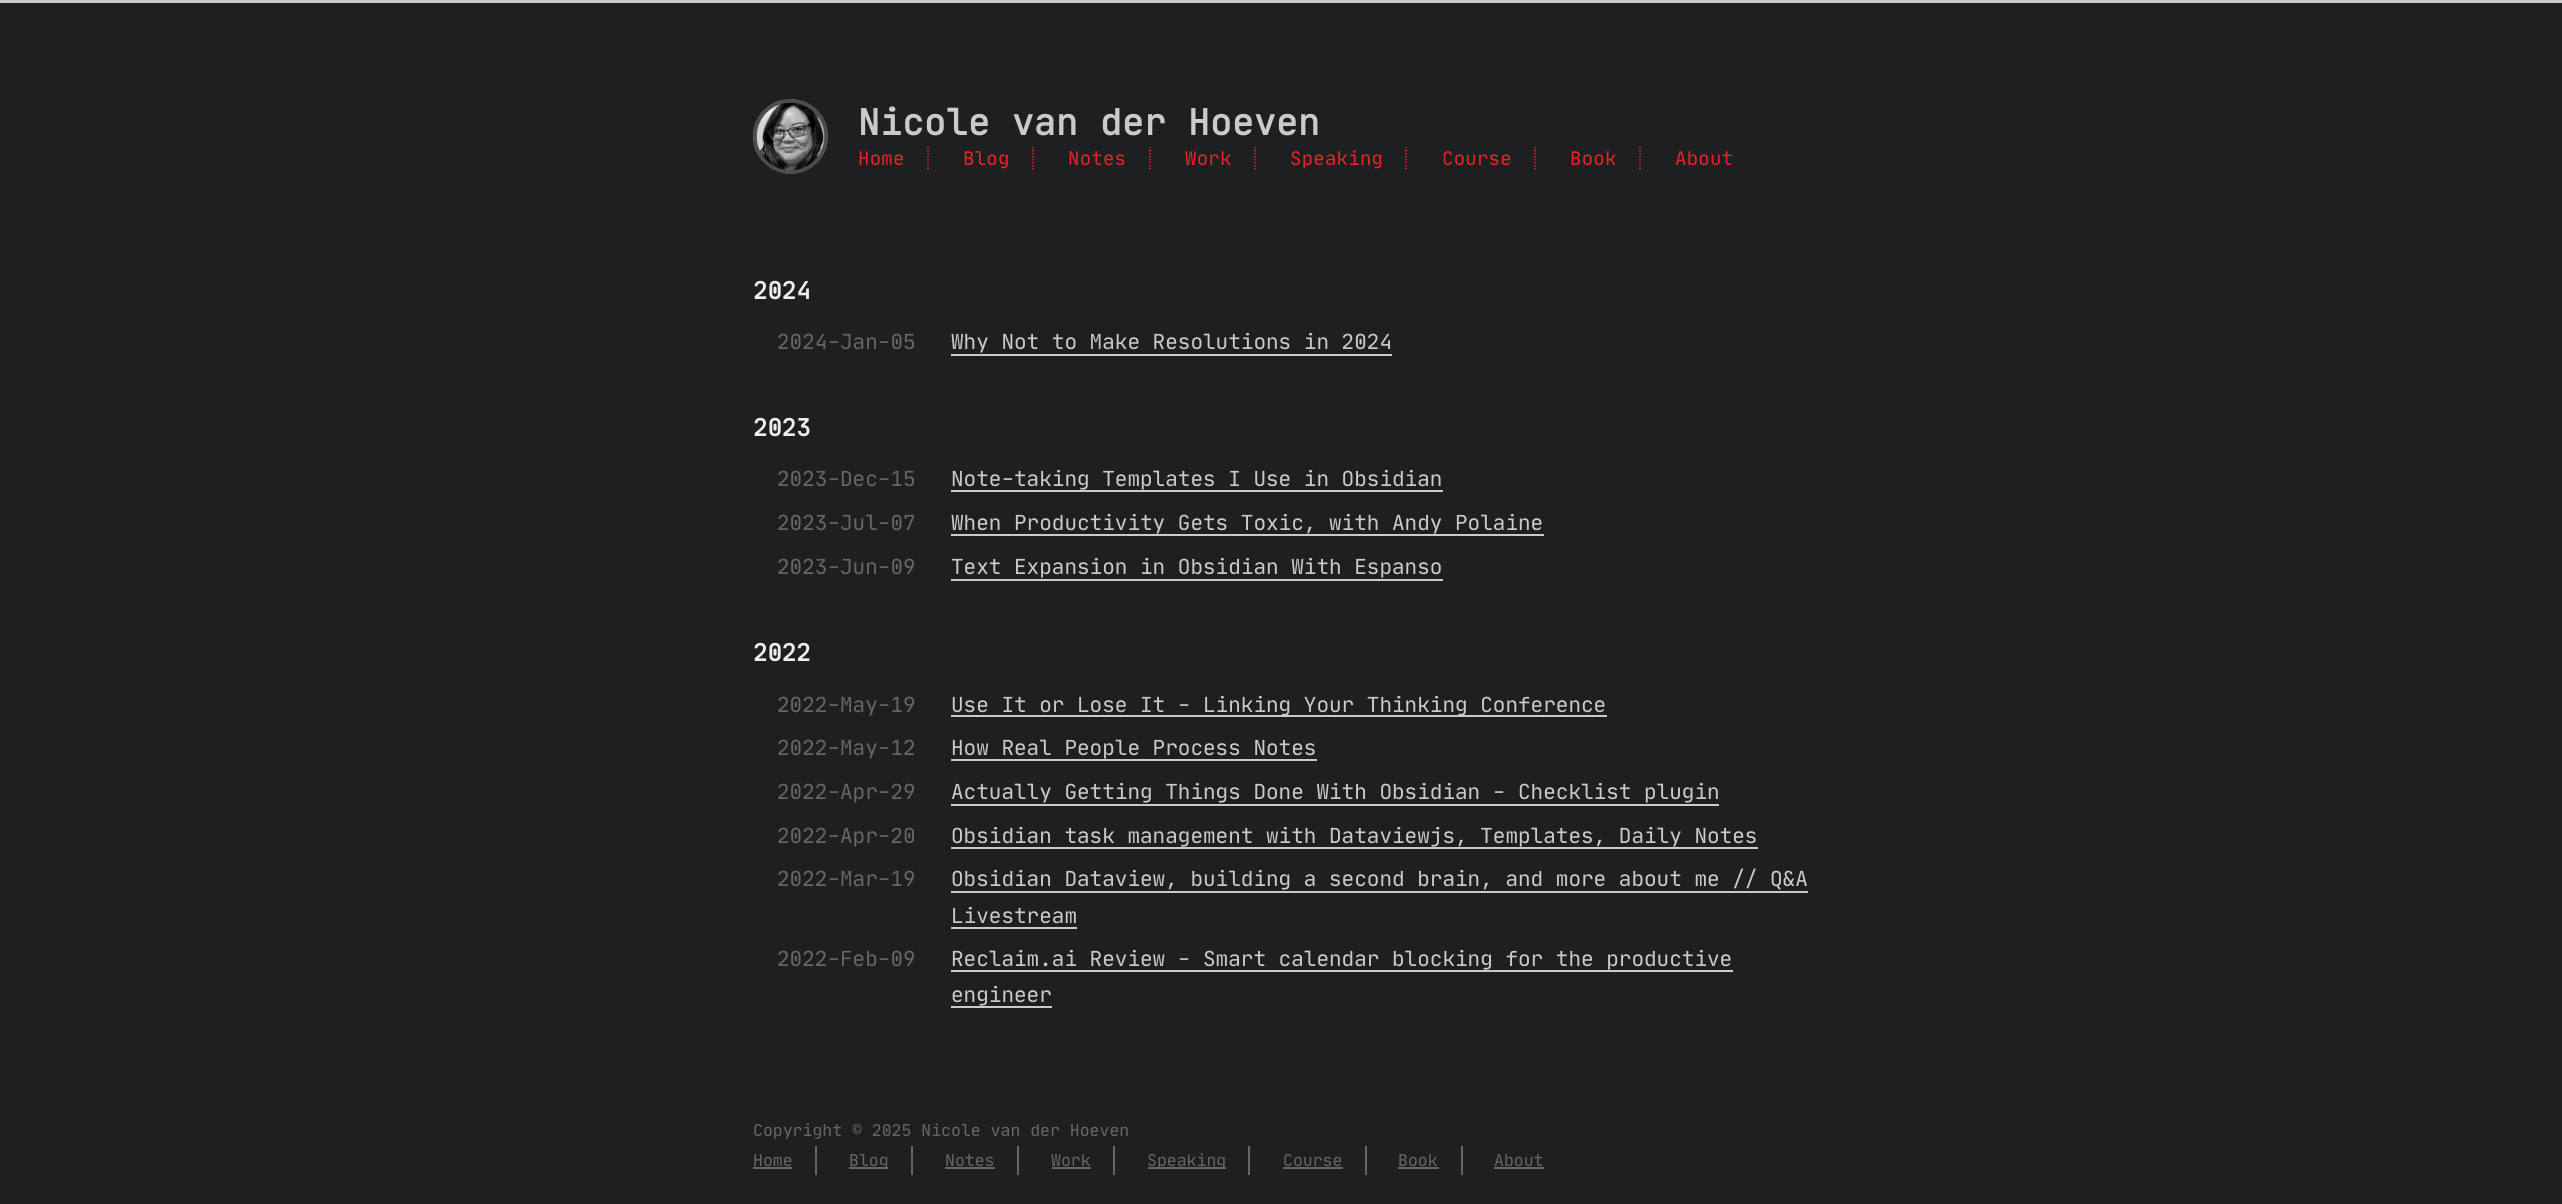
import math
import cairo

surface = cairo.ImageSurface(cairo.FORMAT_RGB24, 2562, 1204)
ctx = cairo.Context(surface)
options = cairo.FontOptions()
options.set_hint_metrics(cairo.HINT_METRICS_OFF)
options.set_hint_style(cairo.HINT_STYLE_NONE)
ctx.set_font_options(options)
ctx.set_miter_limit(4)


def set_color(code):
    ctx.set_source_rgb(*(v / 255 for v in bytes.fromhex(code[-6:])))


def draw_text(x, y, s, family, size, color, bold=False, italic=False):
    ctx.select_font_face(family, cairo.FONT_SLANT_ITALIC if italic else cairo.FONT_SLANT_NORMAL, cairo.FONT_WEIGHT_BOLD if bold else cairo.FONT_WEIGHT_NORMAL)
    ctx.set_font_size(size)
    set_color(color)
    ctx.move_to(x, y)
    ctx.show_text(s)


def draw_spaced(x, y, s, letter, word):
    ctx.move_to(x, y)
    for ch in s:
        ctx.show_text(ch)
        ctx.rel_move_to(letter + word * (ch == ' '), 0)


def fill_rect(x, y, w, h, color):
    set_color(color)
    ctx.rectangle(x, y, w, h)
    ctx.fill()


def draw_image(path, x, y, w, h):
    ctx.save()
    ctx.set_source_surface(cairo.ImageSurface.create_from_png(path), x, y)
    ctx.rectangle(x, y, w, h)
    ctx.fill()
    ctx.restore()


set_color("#1d1f21")
ctx.paint()
fill_rect(0, 0, 2562, 3, "#c9cacc")
draw_image("assets/img1.png", 753, 99, 75, 75)
ctx.select_font_face("JetBrains Mono", cairo.FONT_SLANT_NORMAL, cairo.FONT_WEIGHT_BOLD)
ctx.set_font_size(36)
draw_spaced(858, 135, "Nicole van der Hoeven", 0.4, 0)
ctx.new_path()
ctx.move_to(928, 147)
ctx.line_to(928, 169.5)
set_color("#ec2127")
ctx.set_line_width(1.5)
ctx.set_dash([1.5, 1.5])
ctx.stroke()
ctx.select_font_face("JetBrains Mono")
ctx.set_font_size(19)
draw_spaced(858, 165, "Home", 0.25, 0)
ctx.new_path()
ctx.move_to(1033, 147)
ctx.line_to(1033, 169.5)
ctx.stroke()
draw_spaced(963, 165, "Blog", 0.25, 0)
ctx.new_path()
ctx.move_to(1150, 147)
ctx.line_to(1150, 169.5)
ctx.stroke()
draw_spaced(1068, 165, "Notes", 0.25, 0)
ctx.new_path()
ctx.move_to(1255, 147)
ctx.line_to(1255, 169.5)
ctx.stroke()
draw_spaced(1185, 165, "Work", 0.25, 0)
ctx.new_path()
ctx.move_to(1406, 147)
ctx.line_to(1406, 169.5)
ctx.stroke()
draw_spaced(1290, 165, "Speaking", 0.25, 0)
ctx.new_path()
ctx.move_to(1535, 147)
ctx.line_to(1535, 169.5)
ctx.stroke()
draw_spaced(1442, 165, "Course", 0.25, 0)
ctx.new_path()
ctx.move_to(1640, 147)
ctx.line_to(1640, 169.5)
ctx.stroke()
draw_spaced(1570, 165, "Book", 0.25, 0)
draw_spaced(1675, 165, "About", 0.25, 0)
draw_text(753, 299, "2024", "JetBrains Mono", 24, "#eeeeee", bold=True)
draw_text(777, 349, "2024-Jan-05", "JetBrains Mono", 21, "#666666")
draw_text(951, 349, "Why Not to Make Resolutions in 2024", "JetBrains Mono", 21, "#c9cacc")
gradient = cairo.LinearGradient(1172, 346, 1172, 356)
gradient.add_color_stop_rgba(0, 0.114, 0.122, 0.129, 1)
gradient.add_color_stop_rgba(0.83, 0.114, 0.122, 0.129, 1)
gradient.add_color_stop_rgba(0.83, 0.788, 0.792, 0.8, 1)
gradient.add_color_stop_rgba(1, 0.788, 0.792, 0.8, 1)
ctx.set_source(gradient)
ctx.rectangle(951, 354, 441, 2)
ctx.fill()
draw_text(753, 436, "2023", "JetBrains Mono", 24, "#eeeeee", bold=True)
draw_text(777, 486, "2023-Dec-15", "JetBrains Mono", 21, "#666666")
draw_text(951, 486, "Note-taking Templates I Use in Obsidian", "JetBrains Mono", 21, "#c9cacc")
gradient = cairo.LinearGradient(1197, 483, 1197, 492)
gradient.add_color_stop_rgba(0, 0.114, 0.122, 0.129, 1)
gradient.add_color_stop_rgba(0.83, 0.114, 0.122, 0.129, 1)
gradient.add_color_stop_rgba(0.83, 0.788, 0.792, 0.8, 1)
gradient.add_color_stop_rgba(1, 0.788, 0.792, 0.8, 1)
ctx.set_source(gradient)
ctx.rectangle(951, 490, 492, 2)
ctx.fill()
draw_text(777, 530, "2023-Jul-07", "JetBrains Mono", 21, "#666666")
draw_text(951, 530, "When Productivity Gets Toxic, with Andy Polaine", "JetBrains Mono", 21, "#c9cacc")
gradient = cairo.LinearGradient(1247, 527, 1247, 536)
gradient.add_color_stop_rgba(0, 0.114, 0.122, 0.129, 1)
gradient.add_color_stop_rgba(0.83, 0.114, 0.122, 0.129, 1)
gradient.add_color_stop_rgba(0.83, 0.788, 0.792, 0.8, 1)
gradient.add_color_stop_rgba(1, 0.788, 0.792, 0.8, 1)
ctx.set_source(gradient)
ctx.rectangle(951, 534, 593, 2)
ctx.fill()
draw_text(777, 574, "2023-Jun-09", "JetBrains Mono", 21, "#666666")
draw_text(951, 574, "Text Expansion in Obsidian With Espanso", "JetBrains Mono", 21, "#c9cacc")
gradient = cairo.LinearGradient(1197, 572, 1197, 581)
gradient.add_color_stop_rgba(0, 0.114, 0.122, 0.129, 1)
gradient.add_color_stop_rgba(0.83, 0.114, 0.122, 0.129, 1)
gradient.add_color_stop_rgba(0.83, 0.788, 0.792, 0.8, 1)
gradient.add_color_stop_rgba(1, 0.788, 0.792, 0.8, 1)
ctx.set_source(gradient)
ctx.rectangle(951, 579, 492, 2)
ctx.fill()
draw_text(753, 661, "2022", "JetBrains Mono", 24, "#eeeeee", bold=True)
draw_text(777, 712, "2022-May-19", "JetBrains Mono", 21, "#666666")
gradient = cairo.LinearGradient(1279, 708, 1279, 717)
gradient.add_color_stop_rgba(0, 0.114, 0.122, 0.129, 1)
gradient.add_color_stop_rgba(0.83, 0.114, 0.122, 0.129, 1)
gradient.add_color_stop_rgba(0.83, 0.788, 0.792, 0.8, 1)
gradient.add_color_stop_rgba(1, 0.788, 0.792, 0.8, 1)
ctx.set_source(gradient)
ctx.rectangle(951, 715, 656, 2)
ctx.fill()
draw_text(951, 712, "Use It or Lose It - Linking Your Thinking Conference", "JetBrains Mono", 21, "#c9cacc")
draw_text(777, 755, "2022-May-12", "JetBrains Mono", 21, "#666666")
draw_text(951, 755, "How Real People Process Notes", "JetBrains Mono", 21, "#c9cacc")
gradient = cairo.LinearGradient(1134, 752, 1134, 761)
gradient.add_color_stop_rgba(0, 0.114, 0.122, 0.129, 1)
gradient.add_color_stop_rgba(0.83, 0.114, 0.122, 0.129, 1)
gradient.add_color_stop_rgba(0.83, 0.788, 0.792, 0.8, 1)
gradient.add_color_stop_rgba(1, 0.788, 0.792, 0.8, 1)
ctx.set_source(gradient)
ctx.rectangle(951, 759, 366, 2)
ctx.fill()
draw_text(777, 799, "2022-Apr-29", "JetBrains Mono", 21, "#666666")
draw_text(951, 799, "Actually Getting Things Done With Obsidian - Checklist plugin", "JetBrains Mono", 21, "#c9cacc")
gradient = cairo.LinearGradient(1335, 797, 1335, 806)
gradient.add_color_stop_rgba(0, 0.114, 0.122, 0.129, 1)
gradient.add_color_stop_rgba(0.83, 0.114, 0.122, 0.129, 1)
gradient.add_color_stop_rgba(0.83, 0.788, 0.792, 0.8, 1)
gradient.add_color_stop_rgba(1, 0.788, 0.792, 0.8, 1)
ctx.set_source(gradient)
ctx.rectangle(951, 804, 768, 2)
ctx.fill()
draw_text(777, 843, "2022-Apr-20", "JetBrains Mono", 21, "#666666")
draw_text(951, 843, "Obsidian task management with Dataviewjs, Templates, Daily Notes", "JetBrains Mono", 21, "#c9cacc")
gradient = cairo.LinearGradient(1355, 840, 1355, 849)
gradient.add_color_stop_rgba(0, 0.114, 0.122, 0.129, 1)
gradient.add_color_stop_rgba(0.83, 0.114, 0.122, 0.129, 1)
gradient.add_color_stop_rgba(0.83, 0.788, 0.792, 0.8, 1)
gradient.add_color_stop_rgba(1, 0.788, 0.792, 0.8, 1)
ctx.set_source(gradient)
ctx.rectangle(951, 847, 807, 2)
ctx.fill()
draw_text(777, 886, "2022-Mar-19", "JetBrains Mono", 21, "#666666")
draw_text(951, 886, "Obsidian Dataview, building a second brain, and more about me // Q&A", "JetBrains Mono", 21, "#c9cacc")
gradient = cairo.LinearGradient(1379, 884, 1379, 893)
gradient.add_color_stop_rgba(0, 0.114, 0.122, 0.129, 1)
gradient.add_color_stop_rgba(0.83, 0.114, 0.122, 0.129, 1)
gradient.add_color_stop_rgba(0.83, 0.788, 0.792, 0.8, 1)
gradient.add_color_stop_rgba(1, 0.788, 0.792, 0.8, 1)
ctx.set_source(gradient)
ctx.rectangle(951, 891, 857, 2)
ctx.fill()
draw_text(951, 923, "Livestream", "JetBrains Mono", 21, "#c9cacc")
gradient = cairo.LinearGradient(1014, 920, 1014, 929)
gradient.add_color_stop_rgba(0, 0.114, 0.122, 0.129, 1)
gradient.add_color_stop_rgba(0.83, 0.114, 0.122, 0.129, 1)
gradient.add_color_stop_rgba(0.83, 0.788, 0.792, 0.8, 1)
gradient.add_color_stop_rgba(1, 0.788, 0.792, 0.8, 1)
ctx.set_source(gradient)
ctx.rectangle(951, 927, 126, 2)
ctx.fill()
draw_text(777, 966, "2022-Feb-09", "JetBrains Mono", 21, "#666666")
draw_text(951, 966, "Reclaim.ai Review - Smart calendar blocking for the productive", "JetBrains Mono", 21, "#c9cacc")
gradient = cairo.LinearGradient(1342, 963, 1342, 972)
gradient.add_color_stop_rgba(0, 0.114, 0.122, 0.129, 1)
gradient.add_color_stop_rgba(0.83, 0.114, 0.122, 0.129, 1)
gradient.add_color_stop_rgba(0.83, 0.788, 0.792, 0.8, 1)
gradient.add_color_stop_rgba(1, 0.788, 0.792, 0.8, 1)
ctx.set_source(gradient)
ctx.rectangle(951, 970, 782, 2)
ctx.fill()
draw_text(951, 1002, "engineer", "JetBrains Mono", 21, "#c9cacc")
gradient = cairo.LinearGradient(1001, 999, 1001, 1008)
gradient.add_color_stop_rgba(0, 0.114, 0.122, 0.129, 1)
gradient.add_color_stop_rgba(0.83, 0.114, 0.122, 0.129, 1)
gradient.add_color_stop_rgba(0.83, 0.788, 0.792, 0.8, 1)
gradient.add_color_stop_rgba(1, 0.788, 0.792, 0.8, 1)
ctx.set_source(gradient)
ctx.rectangle(951, 1006, 101, 2)
ctx.fill()
draw_text(753, 1136, "Copyright © 2025 Nicole van der Hoeven", "JetBrains Mono", 16.5, "#666666")
fill_rect(815, 1146, 2, 29, "#666666")
draw_text(753, 1166, "Home", "JetBrains Mono", 16.5, "#666666")
fill_rect(753, 1167, 39, 2, "#666666")
fill_rect(911, 1146, 2, 29, "#666666")
fill_rect(849, 1167, 39, 2, "#666666")
draw_text(849, 1166, "Blog", "JetBrains Mono", 16.5, "#666666")
fill_rect(1017, 1146, 2, 29, "#666666")
draw_text(945, 1166, "Notes", "JetBrains Mono", 16.5, "#666666")
fill_rect(945, 1167, 50, 2, "#666666")
fill_rect(1113, 1146, 2, 29, "#666666")
draw_text(1051, 1166, "Work", "JetBrains Mono", 16.5, "#666666")
fill_rect(1052, 1167, 39, 2, "#666666")
fill_rect(1248, 1146, 2, 29, "#666666")
fill_rect(1148, 1167, 78, 2, "#666666")
draw_text(1147, 1166, "Speaking", "JetBrains Mono", 16.5, "#666666")
fill_rect(1365, 1146, 2, 29, "#666666")
draw_text(1283, 1166, "Course", "JetBrains Mono", 16.5, "#666666")
fill_rect(1283, 1167, 60, 2, "#666666")
fill_rect(1461, 1146, 2, 29, "#666666")
draw_text(1398, 1166, "Book", "JetBrains Mono", 16.5, "#666666")
fill_rect(1398, 1167, 41, 2, "#666666")
draw_text(1494, 1166, "About", "JetBrains Mono", 16.5, "#666666")
fill_rect(1494, 1167, 50, 2, "#666666")
surface.write_to_png("output.png")
